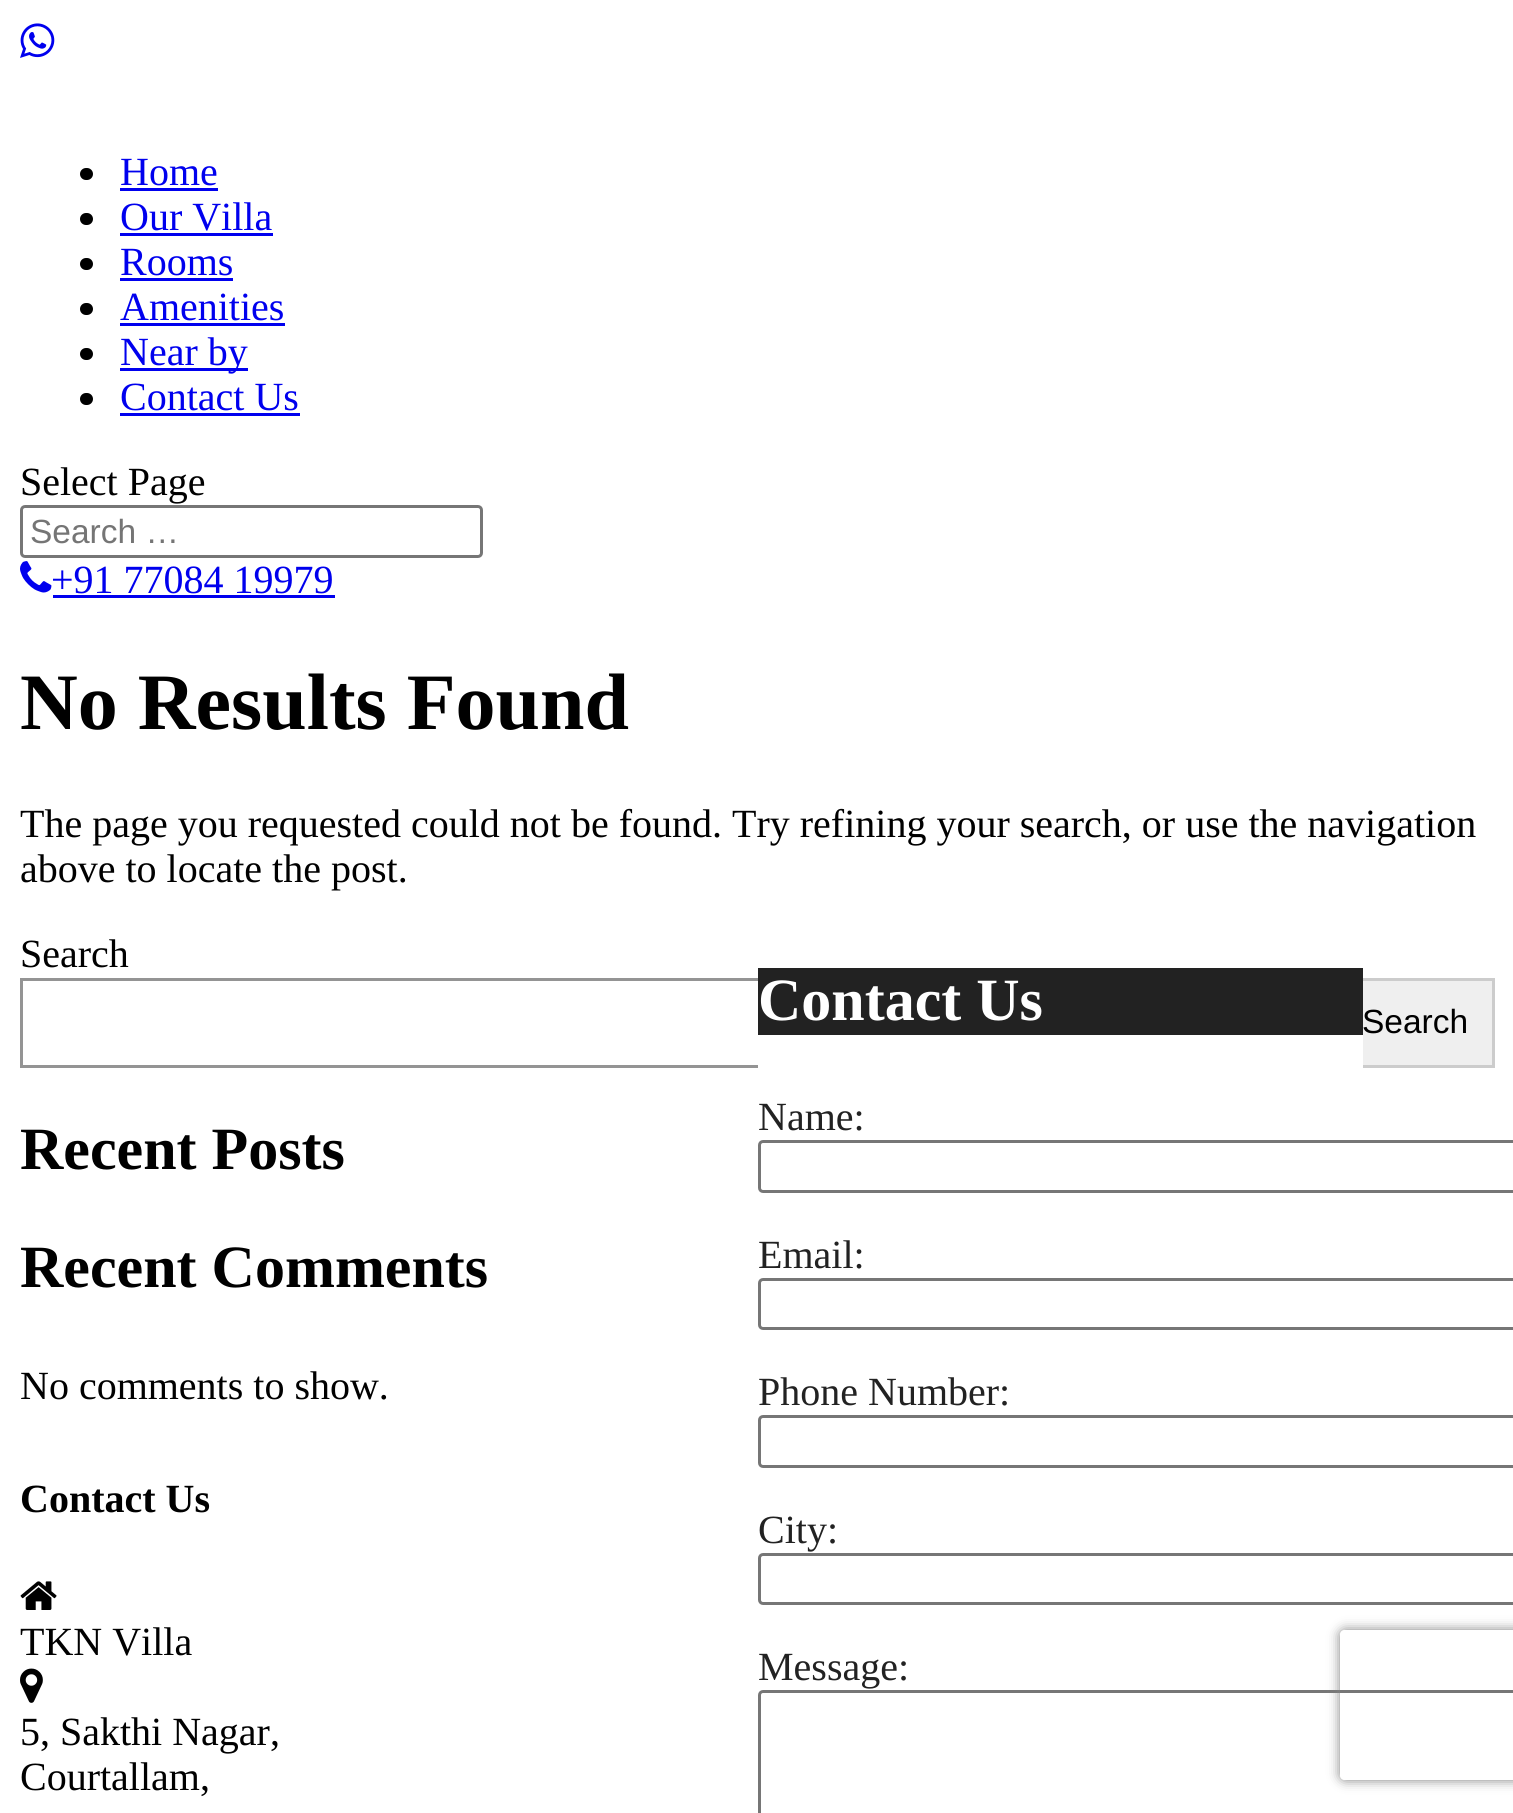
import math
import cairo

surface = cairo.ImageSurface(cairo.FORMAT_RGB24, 1513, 1813)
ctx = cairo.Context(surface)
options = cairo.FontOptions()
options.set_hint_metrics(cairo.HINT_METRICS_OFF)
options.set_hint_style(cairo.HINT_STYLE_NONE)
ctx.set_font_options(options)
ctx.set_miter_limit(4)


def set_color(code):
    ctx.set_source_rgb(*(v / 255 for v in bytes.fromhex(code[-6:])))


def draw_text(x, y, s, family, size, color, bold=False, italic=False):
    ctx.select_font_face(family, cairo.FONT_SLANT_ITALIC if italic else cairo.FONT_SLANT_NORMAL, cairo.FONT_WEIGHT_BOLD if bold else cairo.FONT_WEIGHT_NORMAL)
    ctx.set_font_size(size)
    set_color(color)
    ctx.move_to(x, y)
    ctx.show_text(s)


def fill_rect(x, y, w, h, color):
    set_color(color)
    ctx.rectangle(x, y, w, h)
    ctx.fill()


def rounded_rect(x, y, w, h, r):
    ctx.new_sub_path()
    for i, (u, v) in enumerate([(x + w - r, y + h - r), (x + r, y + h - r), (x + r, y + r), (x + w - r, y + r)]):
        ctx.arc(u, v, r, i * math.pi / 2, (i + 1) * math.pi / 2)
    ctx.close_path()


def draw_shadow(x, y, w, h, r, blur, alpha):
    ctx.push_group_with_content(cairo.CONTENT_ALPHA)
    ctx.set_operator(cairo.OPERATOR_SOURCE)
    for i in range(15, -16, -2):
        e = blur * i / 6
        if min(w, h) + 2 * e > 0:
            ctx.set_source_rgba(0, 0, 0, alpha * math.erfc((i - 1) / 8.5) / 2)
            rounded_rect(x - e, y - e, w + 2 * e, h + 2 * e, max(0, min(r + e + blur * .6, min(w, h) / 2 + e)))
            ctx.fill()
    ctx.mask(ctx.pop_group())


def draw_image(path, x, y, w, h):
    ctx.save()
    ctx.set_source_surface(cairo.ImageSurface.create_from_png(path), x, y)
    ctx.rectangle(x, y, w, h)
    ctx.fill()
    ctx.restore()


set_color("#ffffff")
ctx.paint()
draw_image("assets/img1.png", 20, 23, 35, 35)
set_color("#000000")
rounded_rect(80, 168, 13, 12, 6)
ctx.fill()
draw_text(120, 185, "Home", "Liberation Serif", 40, "#0000ee")
fill_rect(120, 188, 98, 3, "#0000ee")
set_color("#000000")
rounded_rect(80, 213, 13, 12, 6)
ctx.fill()
draw_text(120, 230, "Our Villa", "Liberation Serif", 40, "#0000ee")
fill_rect(120, 233, 153, 3, "#0000ee")
set_color("#000000")
rounded_rect(80, 258, 13, 12, 6)
ctx.fill()
draw_text(120, 275, "Rooms", "Liberation Serif", 40, "#0000ee")
fill_rect(120, 278, 113, 3, "#0000ee")
set_color("#000000")
rounded_rect(80, 303, 13, 12, 6)
ctx.fill()
draw_text(120, 320, "Amenities", "Liberation Serif", 40, "#0000ee")
fill_rect(120, 323, 165, 3, "#0000ee")
set_color("#000000")
rounded_rect(80, 348, 13, 12, 6)
ctx.fill()
fill_rect(120, 368, 128, 3, "#0000ee")
draw_text(120, 365, "Near by", "Liberation Serif", 40, "#0000ee")
set_color("#000000")
rounded_rect(80, 393, 13, 12, 6)
ctx.fill()
draw_text(120, 410, "Contact Us", "Liberation Serif", 40, "#0000ee")
fill_rect(120, 413, 180, 3, "#0000ee")
draw_text(20, 495, "Select Page", "Liberation Serif", 40, "#000000")
rounded_rect(21.5, 506.5, 460, 50, 3.5)
set_color("#767676")
ctx.set_line_width(3)
ctx.stroke()
draw_text(30, 543, "Search …", "Liberation Sans", 33.5, "#757575")
draw_image("assets/img2.png", 20, 561, 32, 32)
draw_text(51, 593, "+91 77084 19979", "Liberation Serif", 40, "#0000ee")
fill_rect(53, 595, 282, 3, "#0000ee")
draw_text(20, 729, "No Results Found", "Liberation Serif", 80, "#000000", bold=True)
draw_text(20, 837, "The page you requested could not be found. Try refining your search, or use the navigation", "Liberation Serif", 40, "#000000")
draw_text(20, 882, "above to locate the post.", "Liberation Serif", 40, "#000000")
draw_text(20, 967, "Search", "Liberation Serif", 40, "#000000")
ctx.rectangle(21.5, 979.5, 1287, 87)
set_color("#949494")
ctx.stroke()
fill_rect(1363, 981, 129, 84, "#efefef")
ctx.rectangle(1336.5, 979.5, 157, 87)
set_color("#cccccc")
ctx.stroke()
draw_text(1362, 1033, "Search", "Liberation Sans", 33.5, "#000000")
draw_text(20, 1169, "Recent Posts", "Liberation Serif", 60, "#000000", bold=True)
draw_text(20, 1287, "Recent Comments", "Liberation Serif", 60, "#000000", bold=True)
draw_text(20, 1399, "No comments to show.", "Liberation Serif", 40, "#000000")
draw_text(20, 1512, "Contact Us", "Liberation Serif", 40, "#000000", bold=True)
draw_image("assets/img3.png", 20, 1581, 37, 29)
draw_text(20, 1655, "TKN Villa", "Liberation Serif", 40, "#000000")
draw_image("assets/img4.png", 20, 1668, 23, 35)
draw_text(20, 1745, "5, Sakthi Nagar,", "Liberation Serif", 40, "#000000")
draw_text(20, 1790, "Courtallam,", "Liberation Serif", 40, "#000000")
fill_rect(758, 1035, 605, 33, "#ffffff")
fill_rect(758, 968, 605, 67, "#222222")
draw_text(758, 1020, "Contact Us", "Liberation Serif", 60, "#ffffff", bold=True)
draw_text(758, 1130, "Name:", "Liberation Serif", 40, "#222222")
rounded_rect(759.5, 1141.5, 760, 50, 3.5)
set_color("#767676")
ctx.stroke()
draw_text(758, 1268, "Email:", "Liberation Serif", 40, "#222222")
rounded_rect(759.5, 1279.5, 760, 49, 3.5)
set_color("#767676")
ctx.stroke()
draw_text(758, 1405, "Phone Number:", "Liberation Serif", 40, "#222222")
rounded_rect(759.5, 1416.5, 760, 50, 3.5)
set_color("#767676")
ctx.stroke()
draw_text(758, 1543, "City:", "Liberation Serif", 40, "#222222")
rounded_rect(759.5, 1554.5, 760, 49, 3.5)
set_color("#767676")
ctx.stroke()
draw_text(758, 1680, "Message:", "Liberation Serif", 40, "#222222")
rounded_rect(759.5, 1691.5, 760, 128, 3.5)
set_color("#767676")
ctx.stroke()
ctx.save()
ctx.set_fill_rule(cairo.FILL_RULE_EVEN_ODD)
ctx.new_path()
ctx.move_to(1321, 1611)
ctx.line_to(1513, 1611)
ctx.line_to(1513, 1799)
ctx.line_to(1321, 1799)
ctx.close_path()
ctx.move_to(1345, 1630)
ctx.line_to(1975, 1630)
ctx.curve_to(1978, 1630, 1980, 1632, 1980, 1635)
ctx.line_to(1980, 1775)
ctx.curve_to(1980, 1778, 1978, 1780, 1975, 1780)
ctx.line_to(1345, 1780)
ctx.curve_to(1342, 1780, 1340, 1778, 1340, 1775)
ctx.line_to(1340, 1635)
ctx.curve_to(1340, 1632, 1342, 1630, 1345, 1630)
ctx.close_path()
ctx.clip()
set_color("#808080")
draw_shadow(1340, 1630, 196, 150, 5, 6, 1)
ctx.restore()
surface.write_to_png("output.png")
